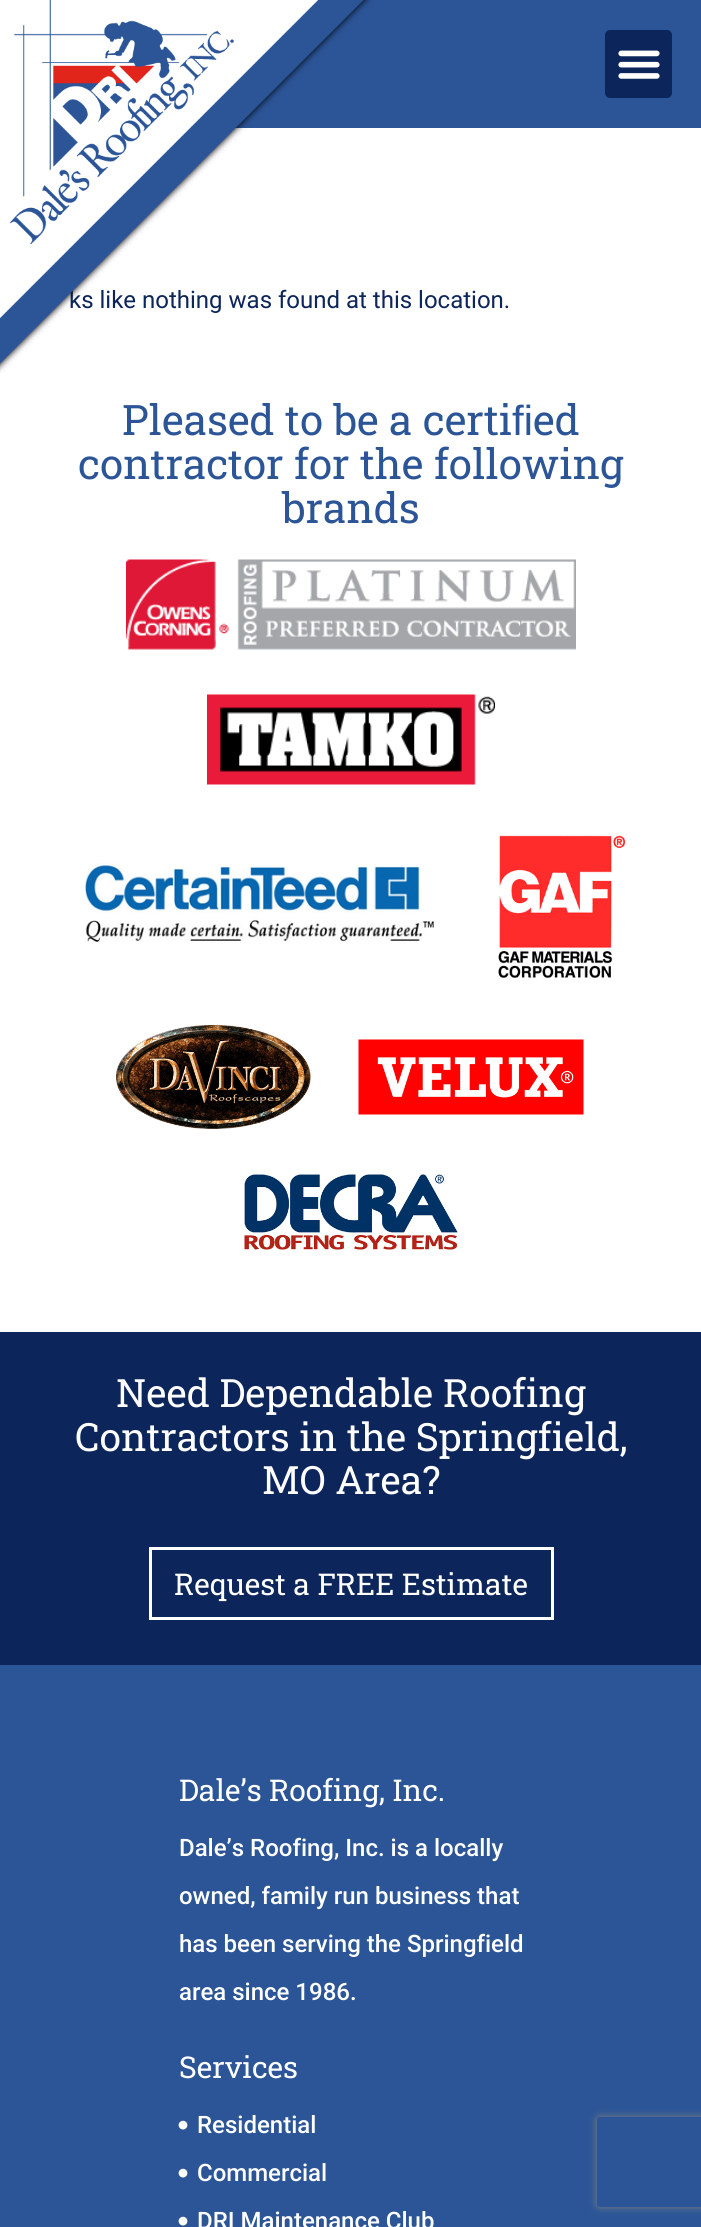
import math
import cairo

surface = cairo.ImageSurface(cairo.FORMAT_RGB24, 701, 2227)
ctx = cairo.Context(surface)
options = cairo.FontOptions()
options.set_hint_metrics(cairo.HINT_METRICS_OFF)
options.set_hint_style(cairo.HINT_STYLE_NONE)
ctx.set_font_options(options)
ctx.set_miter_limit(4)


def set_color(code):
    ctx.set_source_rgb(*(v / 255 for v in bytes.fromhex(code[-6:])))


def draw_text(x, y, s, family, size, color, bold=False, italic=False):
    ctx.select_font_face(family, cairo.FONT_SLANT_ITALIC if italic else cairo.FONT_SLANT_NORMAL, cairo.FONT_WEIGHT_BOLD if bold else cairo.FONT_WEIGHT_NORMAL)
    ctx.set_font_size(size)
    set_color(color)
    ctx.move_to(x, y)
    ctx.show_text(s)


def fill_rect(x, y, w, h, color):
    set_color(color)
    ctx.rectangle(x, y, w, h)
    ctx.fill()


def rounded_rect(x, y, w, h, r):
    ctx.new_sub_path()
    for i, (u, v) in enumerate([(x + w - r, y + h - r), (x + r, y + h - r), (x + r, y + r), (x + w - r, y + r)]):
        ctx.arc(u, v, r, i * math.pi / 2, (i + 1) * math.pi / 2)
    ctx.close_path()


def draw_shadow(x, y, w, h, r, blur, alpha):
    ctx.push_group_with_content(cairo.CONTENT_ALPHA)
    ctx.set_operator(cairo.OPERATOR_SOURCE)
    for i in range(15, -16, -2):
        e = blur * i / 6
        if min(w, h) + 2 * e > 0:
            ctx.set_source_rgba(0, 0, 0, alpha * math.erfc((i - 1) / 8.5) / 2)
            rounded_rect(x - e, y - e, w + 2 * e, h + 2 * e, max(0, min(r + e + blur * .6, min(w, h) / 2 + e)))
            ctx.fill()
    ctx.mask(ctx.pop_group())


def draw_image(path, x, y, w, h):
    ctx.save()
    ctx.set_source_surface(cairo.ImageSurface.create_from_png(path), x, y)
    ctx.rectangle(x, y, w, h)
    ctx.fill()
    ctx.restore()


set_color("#ffffff")
ctx.paint()
fill_rect(235, 0, 466, 128, "#2b5597")
draw_text(69, 308, "ks like nothing was found at this location.", "Roboto", 24, "#0c255a")
draw_image("assets/img1.png", 0, 0, 373, 373)
rounded_rect(605, 30, 67, 68, 5)
ctx.fill()
draw_image("assets/img2.png", 618, 50, 42, 29)
draw_text(122, 435, "Pleased to be a certi", "Roboto Slab", 42, "#2b5597")
draw_text(512, 435, "ﬁ", "Liberation Sans", 42, "#2b5597")
draw_text(533, 435, "ed", "Roboto Slab", 42, "#2b5597")
draw_text(78, 479, "contractor for the following", "Roboto Slab", 42, "#2b5597")
draw_text(282, 523, "brands", "Roboto Slab", 42, "#2b5597")
draw_image("assets/img3.png", 126, 559, 450, 91)
draw_image("assets/img4.png", 207, 694, 288, 91)
draw_image("assets/img5.png", 84, 863, 350, 79)
draw_image("assets/img6.png", 498, 835, 128, 143)
draw_image("assets/img7.png", 116, 1024, 195, 105)
draw_image("assets/img8.png", 358, 1039, 226, 76)
draw_image("assets/img9.png", 244, 1174, 214, 76)
fill_rect(0, 1332, 701, 333, "#0c255a")
draw_text(116, 1407, "Need Dependable Roofing", "Roboto Slab", 39, "#ffffff")
draw_text(75, 1451, "Contractors in the Springfield,", "Roboto Slab", 39, "#ffffff")
draw_text(262, 1494, "MO Area?", "Roboto Slab", 39, "#ffffff")
ctx.rectangle(150.5, 1548.5, 402, 70)
ctx.set_line_width(3)
ctx.stroke()
draw_text(174, 1595, "Request a FREE Estimate", "Roboto Slab", 30, "#ffffff")
fill_rect(0, 1665, 701, 562, "#2b5597")
draw_text(179, 1801, "Dale’s Roofing, Inc.", "Roboto Slab", 30, "#ffffff")
draw_text(179, 1856, "Dale’s Roofing, Inc. is a locally", "Roboto Medium", 24, "#ffffff")
draw_text(179, 1904, "owned, family run business that", "Roboto Medium", 24, "#ffffff")
draw_text(179, 1952, "has been serving the Springfield", "Roboto Medium", 24, "#ffffff")
draw_text(179, 2000, "area since 1986.", "Roboto Medium", 24, "#ffffff")
draw_text(179, 2078, "Services", "Roboto Slab", 30, "#ffffff")
draw_image("assets/img10.png", 178, 2120, 10, 10)
draw_text(197, 2133, "Residential", "Roboto Medium", 24, "#ffffff")
draw_image("assets/img10.png", 178, 2168, 10, 10)
draw_text(197, 2181, "Commercial", "Roboto Medium", 24, "#ffffff")
draw_image("assets/img10.png", 178, 2216, 10, 10)
draw_text(197, 2229, "DRI Maintenance Club", "Roboto Medium", 24, "#ffffff")
ctx.save()
ctx.set_fill_rule(cairo.FILL_RULE_EVEN_ODD)
ctx.new_path()
ctx.move_to(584, 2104)
ctx.line_to(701, 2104)
ctx.line_to(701, 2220)
ctx.line_to(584, 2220)
ctx.close_path()
ctx.move_to(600, 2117)
ctx.line_to(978, 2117)
ctx.curve_to(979.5, 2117, 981, 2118.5, 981, 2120)
ctx.line_to(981, 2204)
ctx.curve_to(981, 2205.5, 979.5, 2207, 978, 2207)
ctx.line_to(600, 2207)
ctx.curve_to(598.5, 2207, 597, 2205.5, 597, 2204)
ctx.line_to(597, 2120)
ctx.curve_to(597, 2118.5, 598.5, 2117, 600, 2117)
ctx.close_path()
ctx.clip()
set_color("#808080")
draw_shadow(597, 2117, 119, 90, 3, 4, 1)
ctx.restore()
surface.write_to_png("output.png")
